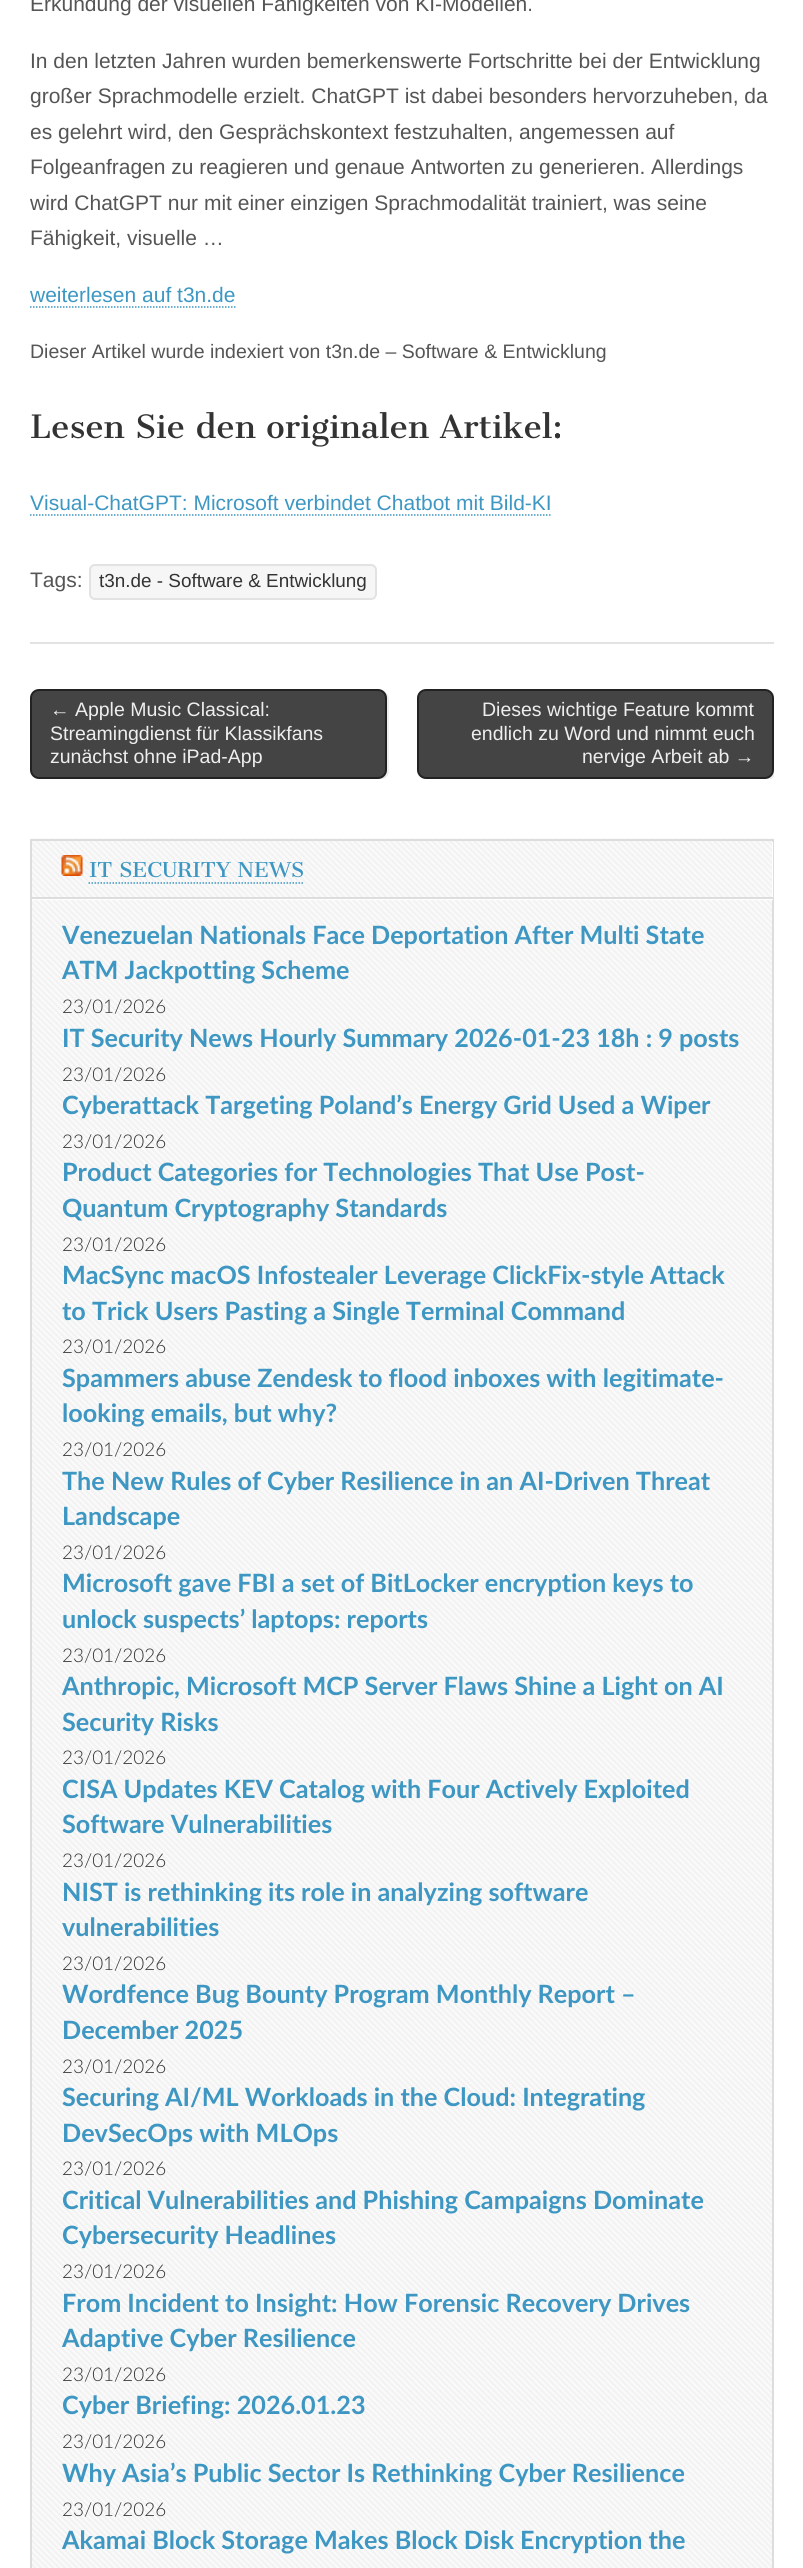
import math
import cairo

surface = cairo.ImageSurface(cairo.FORMAT_RGB24, 803, 2568)
ctx = cairo.Context(surface)
options = cairo.FontOptions()
options.set_hint_metrics(cairo.HINT_METRICS_OFF)
options.set_hint_style(cairo.HINT_STYLE_NONE)
ctx.set_font_options(options)
ctx.set_miter_limit(4)


def set_color(code):
    ctx.set_source_rgb(*(v / 255 for v in bytes.fromhex(code[-6:])))


def draw_text(x, y, s, family, size, color, bold=False, italic=False):
    ctx.select_font_face(family, cairo.FONT_SLANT_ITALIC if italic else cairo.FONT_SLANT_NORMAL, cairo.FONT_WEIGHT_BOLD if bold else cairo.FONT_WEIGHT_NORMAL)
    ctx.set_font_size(size)
    set_color(color)
    ctx.move_to(x, y)
    ctx.show_text(s)


def fill_rect(x, y, w, h, color):
    set_color(color)
    ctx.rectangle(x, y, w, h)
    ctx.fill()


def rounded_rect(x, y, w, h, r):
    ctx.new_sub_path()
    for i, (u, v) in enumerate([(x + w - r, y + h - r), (x + r, y + h - r), (x + r, y + r), (x + w - r, y + r)]):
        ctx.arc(u, v, r, i * math.pi / 2, (i + 1) * math.pi / 2)
    ctx.close_path()


def draw_image(path, x, y, w, h):
    ctx.save()
    ctx.set_source_surface(cairo.ImageSurface.create_from_png(path), x, y)
    ctx.rectangle(x, y, w, h)
    ctx.fill()
    ctx.restore()


set_color("#ffffff")
ctx.paint()
fill_rect(30, 642, 744, 2, "#e2e2e2")
draw_text(30, 11, "Erkundung der visuellen Fähigkeiten von KI-Modellen.", "Liberation Sans", 21, "#555555")
draw_text(30, 68, "In den letzten Jahren wurden bemerkenswerte Fortschritte bei der Entwicklung", "Liberation Sans", 21, "#555555")
draw_text(30, 103, "großer Sprachmodelle erzielt. ChatGPT ist dabei besonders hervorzuheben, da", "Liberation Sans", 21, "#555555")
draw_text(30, 139, "es gelehrt wird, den Gesprächskontext festzuhalten, angemessen auf", "Liberation Sans", 21, "#555555")
draw_text(30, 174, "Folgeanfragen zu reagieren und genaue Antworten zu generieren. Allerdings", "Liberation Sans", 21, "#555555")
draw_text(30, 210, "wird ChatGPT nur mit einer einzigen Sprachmodalität trainiert, was seine", "Liberation Sans", 21, "#555555")
draw_text(30, 245, "Fähigkeit, visuelle …", "Liberation Sans", 21, "#555555")
draw_text(30, 302, "weiterlesen auf t3n.de", "Liberation Sans", 21, "#3d97c2")
ctx.new_path()
ctx.move_to(30, 307)
ctx.line_to(235.5, 307)
ctx.set_line_width(1.5)
ctx.set_dash([1.5, 1.5])
ctx.stroke()
draw_text(30, 358, "Dieser Artikel wurde indexiert von t3n.de – Software & Entwicklung", "Liberation Sans", 19.5, "#555555")
draw_text(30, 438, "Lesen Sie den originalen Artikel:", "Cantata One", 31.5, "#333333")
draw_text(30, 510, "Visual-ChatGPT: Microsoft verbindet Chatbot mit Bild-KI", "Liberation Sans", 21, "#3d97c2")
ctx.new_path()
ctx.move_to(30, 515)
ctx.line_to(552, 515)
ctx.stroke()
draw_text(30, 587, "Tags:", "Liberation Sans", 21, "#555555")
set_color("#f6f6f6")
rounded_rect(90, 565, 286, 34, 5)
ctx.fill_preserve()
set_color("#e2e2e2")
ctx.set_line_width(2)
ctx.set_dash([])
ctx.stroke()
draw_text(99, 587, "t3n.de - Software & Entwicklung", "Liberation Sans", 18.9, "#333333")
ctx.save()
ctx.rectangle(30, 689, 744, 90)
ctx.clip()
set_color("#eeeeee")
ctx.new_path()
ctx.move_to(35, 777)
ctx.curve_to(36, 779, 39, 780, 41, 780)
ctx.line_to(380, 780)
ctx.curve_to(385, 780, 389, 776, 389, 771)
ctx.line_to(389, 699)
ctx.curve_to(389, 696, 387, 693, 384, 691)
ctx.curve_to(386, 693, 387, 695, 387, 698)
ctx.line_to(387, 770)
ctx.curve_to(387, 774, 383, 778, 378, 778)
ctx.line_to(39, 778)
ctx.curve_to(37, 778, 36, 778, 35, 777)
ctx.close_path()
ctx.fill()
ctx.restore()
set_color("#444444")
rounded_rect(31, 690, 355, 88, 8)
ctx.fill_preserve()
set_color("#222222")
ctx.stroke()
draw_text(50, 716, "← Apple Music Classical:", "Liberation Sans", 19.5, "#eeeeee")
draw_text(50, 740, "Streamingdienst für Klassikfans", "Liberation Sans", 19.5, "#eeeeee")
draw_text(50, 763, "zunächst ohne iPad-App", "Liberation Sans", 19.5, "#eeeeee")
ctx.save()
ctx.rectangle(30, 689, 744, 90)
ctx.clip()
ctx.new_path()
ctx.move_to(422, 777)
ctx.curve_to(423, 779, 426, 780, 428, 780)
ctx.line_to(767, 780)
ctx.curve_to(772, 780, 776, 776, 776, 771)
ctx.line_to(776, 699)
ctx.curve_to(776, 696, 774, 693, 771, 691)
ctx.curve_to(773, 693, 774, 695, 774, 698)
ctx.line_to(774, 770)
ctx.curve_to(774, 774, 770, 778, 765, 778)
ctx.line_to(426, 778)
ctx.curve_to(424, 778, 423, 778, 422, 777)
ctx.close_path()
ctx.fill()
ctx.restore()
set_color("#444444")
rounded_rect(418, 690, 355, 88, 8)
ctx.fill_preserve()
set_color("#222222")
ctx.stroke()
draw_text(482, 716, "Dieses wichtige Feature kommt", "Liberation Sans", 19.5, "#eeeeee")
draw_text(471, 740, "endlich zu Word und nimmt euch", "Liberation Sans", 19.5, "#eeeeee")
draw_text(582, 763, "nervige Arbeit ab →", "Liberation Sans", 19.5, "#eeeeee")
draw_image("assets/img1.png", 30, 838, 744, 1730)
ctx.rectangle(31, 840, 742, 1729)
set_color("#dddddd")
ctx.stroke()
set_color("#ffffff")
ctx.new_path()
ctx.move_to(32, 898)
ctx.line_to(32, 900)
ctx.line_to(773, 900)
ctx.line_to(773, 842)
ctx.line_to(772, 842)
ctx.line_to(772, 898)
ctx.close_path()
ctx.fill()
fill_rect(32, 897, 741, 2, "#dddddd")
draw_image("assets/img2.png", 61, 855, 22, 21)
draw_text(89, 877, "IT SECURITY NEWS", "Cantata One", 20, "#3d97c2")
ctx.new_path()
ctx.move_to(88.5, 883)
ctx.line_to(303, 883)
ctx.set_line_width(1.5)
ctx.set_dash([1.5, 1.5])
ctx.stroke()
draw_text(62, 944, "Venezuelan Nationals Face Deportation After Multi State", "Lato", 25.2, "#3d97c2", bold=True)
draw_text(62, 979, "ATM Jackpotting Scheme", "Lato", 25.2, "#3d97c2", bold=True)
draw_text(62, 1013, "23/01/2026", "Lato Light", 18.9, "#333333")
draw_text(62, 1047, "IT Security News Hourly Summary 2026-01-23 18h : 9 posts", "Lato", 25.2, "#3d97c2", bold=True)
draw_text(62, 1081, "23/01/2026", "Lato Light", 18.9, "#333333")
draw_text(62, 1114, "Cyberattack Targeting Poland’s Energy Grid Used a Wiper", "Lato", 25.2, "#3d97c2", bold=True)
draw_text(62, 1148, "23/01/2026", "Lato Light", 18.9, "#333333")
draw_text(62, 1181, "Product Categories for Technologies That Use Post-", "Lato", 25.2, "#3d97c2", bold=True)
draw_text(62, 1217, "Quantum Cryptography Standards", "Lato", 25.2, "#3d97c2", bold=True)
draw_text(62, 1251, "23/01/2026", "Lato Light", 18.9, "#333333")
draw_text(62, 1284, "MacSync macOS Infostealer Leverage ClickFix-style Attack", "Lato", 25.2, "#3d97c2", bold=True)
draw_text(62, 1320, "to Trick Users Pasting a Single Terminal Command", "Lato", 25.2, "#3d97c2", bold=True)
draw_text(62, 1353, "23/01/2026", "Lato Light", 18.9, "#333333")
draw_text(62, 1387, "Spammers abuse Zendesk to flood inboxes with legitimate-", "Lato", 25.2, "#3d97c2", bold=True)
draw_text(62, 1422, "looking emails, but why?", "Lato", 25.2, "#3d97c2", bold=True)
draw_text(62, 1456, "23/01/2026", "Lato Light", 18.9, "#333333")
draw_text(62, 1490, "The New Rules of Cyber Resilience in an AI-Driven Threat", "Lato", 25.2, "#3d97c2", bold=True)
draw_text(62, 1525, "Landscape", "Lato", 25.2, "#3d97c2", bold=True)
draw_text(62, 1559, "23/01/2026", "Lato Light", 18.9, "#333333")
draw_text(62, 1592, "Microsoft gave FBI a set of BitLocker encryption keys to", "Lato", 25.2, "#3d97c2", bold=True)
draw_text(62, 1628, "unlock suspects’ laptops: reports", "Lato", 25.2, "#3d97c2", bold=True)
draw_text(62, 1662, "23/01/2026", "Lato Light", 18.9, "#333333")
draw_text(62, 1695, "Anthropic, Microsoft MCP Server Flaws Shine a Light on AI", "Lato", 25.2, "#3d97c2", bold=True)
draw_text(62, 1731, "Security Risks", "Lato", 25.2, "#3d97c2", bold=True)
draw_text(62, 1764, "23/01/2026", "Lato Light", 18.9, "#333333")
draw_text(62, 1798, "CISA Updates KEV Catalog with Four Actively Exploited", "Lato", 25.2, "#3d97c2", bold=True)
draw_text(62, 1833, "Software Vulnerabilities", "Lato", 25.2, "#3d97c2", bold=True)
draw_text(62, 1867, "23/01/2026", "Lato Light", 18.9, "#333333")
draw_text(62, 1901, "NIST is rethinking its role in analyzing software", "Lato", 25.2, "#3d97c2", bold=True)
draw_text(62, 1936, "vulnerabilities", "Lato", 25.2, "#3d97c2", bold=True)
draw_text(62, 1970, "23/01/2026", "Lato Light", 18.9, "#333333")
draw_text(62, 2003, "Wordfence Bug Bounty Program Monthly Report –", "Lato", 25.2, "#3d97c2", bold=True)
draw_text(62, 2039, "December 2025", "Lato", 25.2, "#3d97c2", bold=True)
draw_text(62, 2073, "23/01/2026", "Lato Light", 18.9, "#333333")
draw_text(62, 2106, "Securing AI/ML Workloads in the Cloud: Integrating", "Lato", 25.2, "#3d97c2", bold=True)
draw_text(62, 2142, "DevSecOps with MLOps", "Lato", 25.2, "#3d97c2", bold=True)
draw_text(62, 2175, "23/01/2026", "Lato Light", 18.9, "#333333")
draw_text(62, 2209, "Critical Vulnerabilities and Phishing Campaigns Dominate", "Lato", 25.2, "#3d97c2", bold=True)
draw_text(62, 2244, "Cybersecurity Headlines", "Lato", 25.2, "#3d97c2", bold=True)
draw_text(62, 2278, "23/01/2026", "Lato Light", 18.9, "#333333")
draw_text(62, 2312, "From Incident to Insight: How Forensic Recovery Drives", "Lato", 25.2, "#3d97c2", bold=True)
draw_text(62, 2347, "Adaptive Cyber Resilience", "Lato", 25.2, "#3d97c2", bold=True)
draw_text(62, 2381, "23/01/2026", "Lato Light", 18.9, "#333333")
draw_text(62, 2414, "Cyber Briefing: 2026.01.23", "Lato", 25.2, "#3d97c2", bold=True)
draw_text(62, 2448, "23/01/2026", "Lato Light", 18.9, "#333333")
draw_text(62, 2482, "Why Asia’s Public Sector Is Rethinking Cyber Resilience", "Lato", 25.2, "#3d97c2", bold=True)
draw_text(62, 2516, "23/01/2026", "Lato Light", 18.9, "#333333")
draw_text(62, 2549, "Akamai Block Storage Makes Block Disk Encryption the", "Lato", 25.2, "#3d97c2", bold=True)
surface.write_to_png("output.png")
